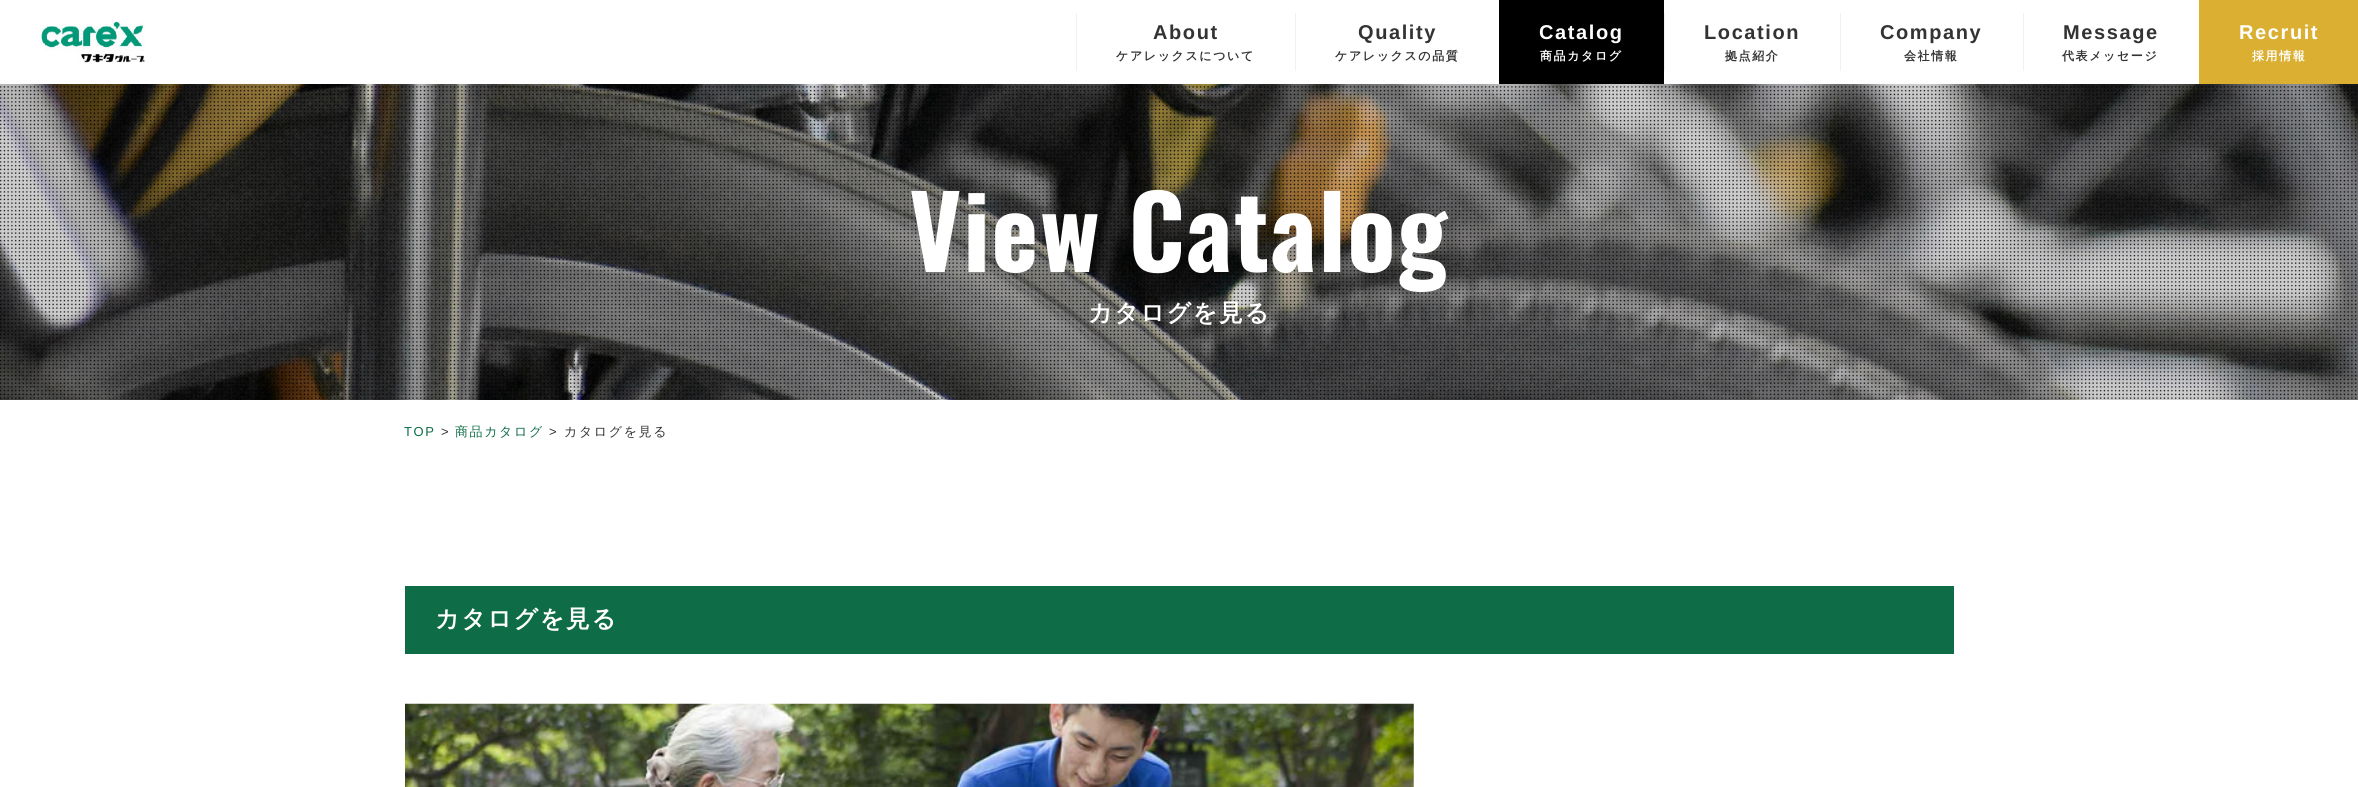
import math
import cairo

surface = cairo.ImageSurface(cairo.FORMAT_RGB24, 2358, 787)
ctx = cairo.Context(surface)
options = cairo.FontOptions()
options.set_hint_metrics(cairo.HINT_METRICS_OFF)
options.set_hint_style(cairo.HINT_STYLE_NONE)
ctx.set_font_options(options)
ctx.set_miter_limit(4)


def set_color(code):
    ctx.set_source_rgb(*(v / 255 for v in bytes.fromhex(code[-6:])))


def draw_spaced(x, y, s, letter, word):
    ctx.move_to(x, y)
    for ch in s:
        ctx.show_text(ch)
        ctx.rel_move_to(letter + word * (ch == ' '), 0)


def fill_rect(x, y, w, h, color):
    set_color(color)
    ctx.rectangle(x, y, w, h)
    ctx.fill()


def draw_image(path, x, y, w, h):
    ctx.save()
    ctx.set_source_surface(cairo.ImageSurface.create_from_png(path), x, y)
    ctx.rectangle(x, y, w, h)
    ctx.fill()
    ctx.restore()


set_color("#ffffff")
ctx.paint()
draw_image("assets/img1.png", 40, 21, 105, 42)
fill_rect(1076, 13, 1, 58, "#f1f1f1")
ctx.select_font_face("Liberation Sans", cairo.FONT_SLANT_NORMAL, cairo.FONT_WEIGHT_BOLD)
ctx.set_font_size(20)
set_color("#333333")
draw_spaced(1153, 39, "About", 1.6, 0)
ctx.select_font_face("WenQuanYi Zen Hei", cairo.FONT_SLANT_NORMAL, cairo.FONT_WEIGHT_BOLD)
ctx.set_font_size(12)
draw_spaced(1116, 60, "ケアレックスについて", 1.6, 0)
fill_rect(1295, 13, 1, 58, "#f1f1f1")
ctx.select_font_face("Liberation Sans", cairo.FONT_SLANT_NORMAL, cairo.FONT_WEIGHT_BOLD)
ctx.set_font_size(20)
set_color("#333333")
draw_spaced(1358, 39, "Quality", 1.6, 0)
ctx.select_font_face("WenQuanYi Zen Hei", cairo.FONT_SLANT_NORMAL, cairo.FONT_WEIGHT_BOLD)
ctx.set_font_size(12)
draw_spaced(1335, 60, "ケアレックスの品質", 1.6, 0)
fill_rect(1499, 0, 165, 84, "#000000")
ctx.select_font_face("Liberation Sans", cairo.FONT_SLANT_NORMAL, cairo.FONT_WEIGHT_BOLD)
ctx.set_font_size(20)
set_color("#ffffff")
draw_spaced(1539, 39, "Catalog", 1.6, 0)
ctx.select_font_face("WenQuanYi Zen Hei", cairo.FONT_SLANT_NORMAL, cairo.FONT_WEIGHT_BOLD)
ctx.set_font_size(12)
draw_spaced(1540, 60, "商品カタログ", 1.6, 0)
fill_rect(1664, 13, 1, 58, "#f1f1f1")
ctx.select_font_face("Liberation Sans", cairo.FONT_SLANT_NORMAL, cairo.FONT_WEIGHT_BOLD)
ctx.set_font_size(20)
set_color("#333333")
draw_spaced(1704, 39, "Location", 1.6, 0)
ctx.select_font_face("WenQuanYi Zen Hei", cairo.FONT_SLANT_NORMAL, cairo.FONT_WEIGHT_BOLD)
ctx.set_font_size(12)
draw_spaced(1725, 60, "拠点紹介", 1.6, 0)
fill_rect(1840, 13, 1, 58, "#f1f1f1")
ctx.select_font_face("Liberation Sans", cairo.FONT_SLANT_NORMAL, cairo.FONT_WEIGHT_BOLD)
ctx.set_font_size(20)
set_color("#333333")
draw_spaced(1880, 39, "Company", 1.6, 0)
ctx.select_font_face("WenQuanYi Zen Hei", cairo.FONT_SLANT_NORMAL, cairo.FONT_WEIGHT_BOLD)
ctx.set_font_size(12)
draw_spaced(1904, 60, "会社情報", 1.6, 0)
fill_rect(2023, 13, 1, 58, "#f1f1f1")
ctx.select_font_face("Liberation Sans", cairo.FONT_SLANT_NORMAL, cairo.FONT_WEIGHT_BOLD)
ctx.set_font_size(20)
set_color("#333333")
draw_spaced(2063, 39, "Message", 1.6, 0)
ctx.select_font_face("WenQuanYi Zen Hei", cairo.FONT_SLANT_NORMAL, cairo.FONT_WEIGHT_BOLD)
ctx.set_font_size(12)
draw_spaced(2062, 60, "代表メッセージ", 1.6, 0)
fill_rect(2199, 0, 159, 84, "#daaf32")
ctx.select_font_face("Liberation Sans", cairo.FONT_SLANT_NORMAL, cairo.FONT_WEIGHT_BOLD)
ctx.set_font_size(20)
set_color("#ffffff")
draw_spaced(2239, 39, "Recruit", 1.6, 0)
ctx.select_font_face("WenQuanYi Zen Hei", cairo.FONT_SLANT_NORMAL, cairo.FONT_WEIGHT_BOLD)
ctx.set_font_size(12)
draw_spaced(2252, 60, "採用情報", 1.6, 0)
draw_image("assets/img2.png", 0, 84, 2358, 316)
draw_image("assets/img3.png", 0, 86, 2357, 313)
ctx.select_font_face("Oswald", cairo.FONT_SLANT_NORMAL, cairo.FONT_WEIGHT_BOLD)
ctx.set_font_size(100)
draw_spaced(909, 272, "View Catalog", 1.6, 0)
ctx.select_font_face("WenQuanYi Zen Hei", cairo.FONT_SLANT_NORMAL, cairo.FONT_WEIGHT_BOLD)
ctx.set_font_size(24)
draw_spaced(1088, 321, "カタログを見る", 1.6, 0)
ctx.select_font_face("Liberation Sans")
ctx.set_font_size(13)
set_color("#0e6d46")
draw_spaced(404, 436, "TOP", 1.6, 0)
set_color("#333333")
draw_spaced(441, 436, ">", 1.6, 0)
ctx.select_font_face("WenQuanYi Zen Hei Medium")
set_color("#0e6d46")
draw_spaced(455, 436, "商品カタログ", 1.6, 0)
ctx.select_font_face("Liberation Sans")
set_color("#333333")
draw_spaced(549, 436, ">", 1.6, 0)
ctx.select_font_face("WenQuanYi Zen Hei Medium")
draw_spaced(564, 436, "カタログを見る", 1.6, 0)
fill_rect(405, 586, 1549, 68, "#0e6d46")
ctx.select_font_face("WenQuanYi Zen Hei", cairo.FONT_SLANT_NORMAL, cairo.FONT_WEIGHT_BOLD)
ctx.set_font_size(24)
set_color("#ffffff")
draw_spaced(435, 627, "カタログを見る", 1.6, 0)
draw_image("assets/img4.png", 405, 703, 1009, 84)
surface.write_to_png("output.png")
